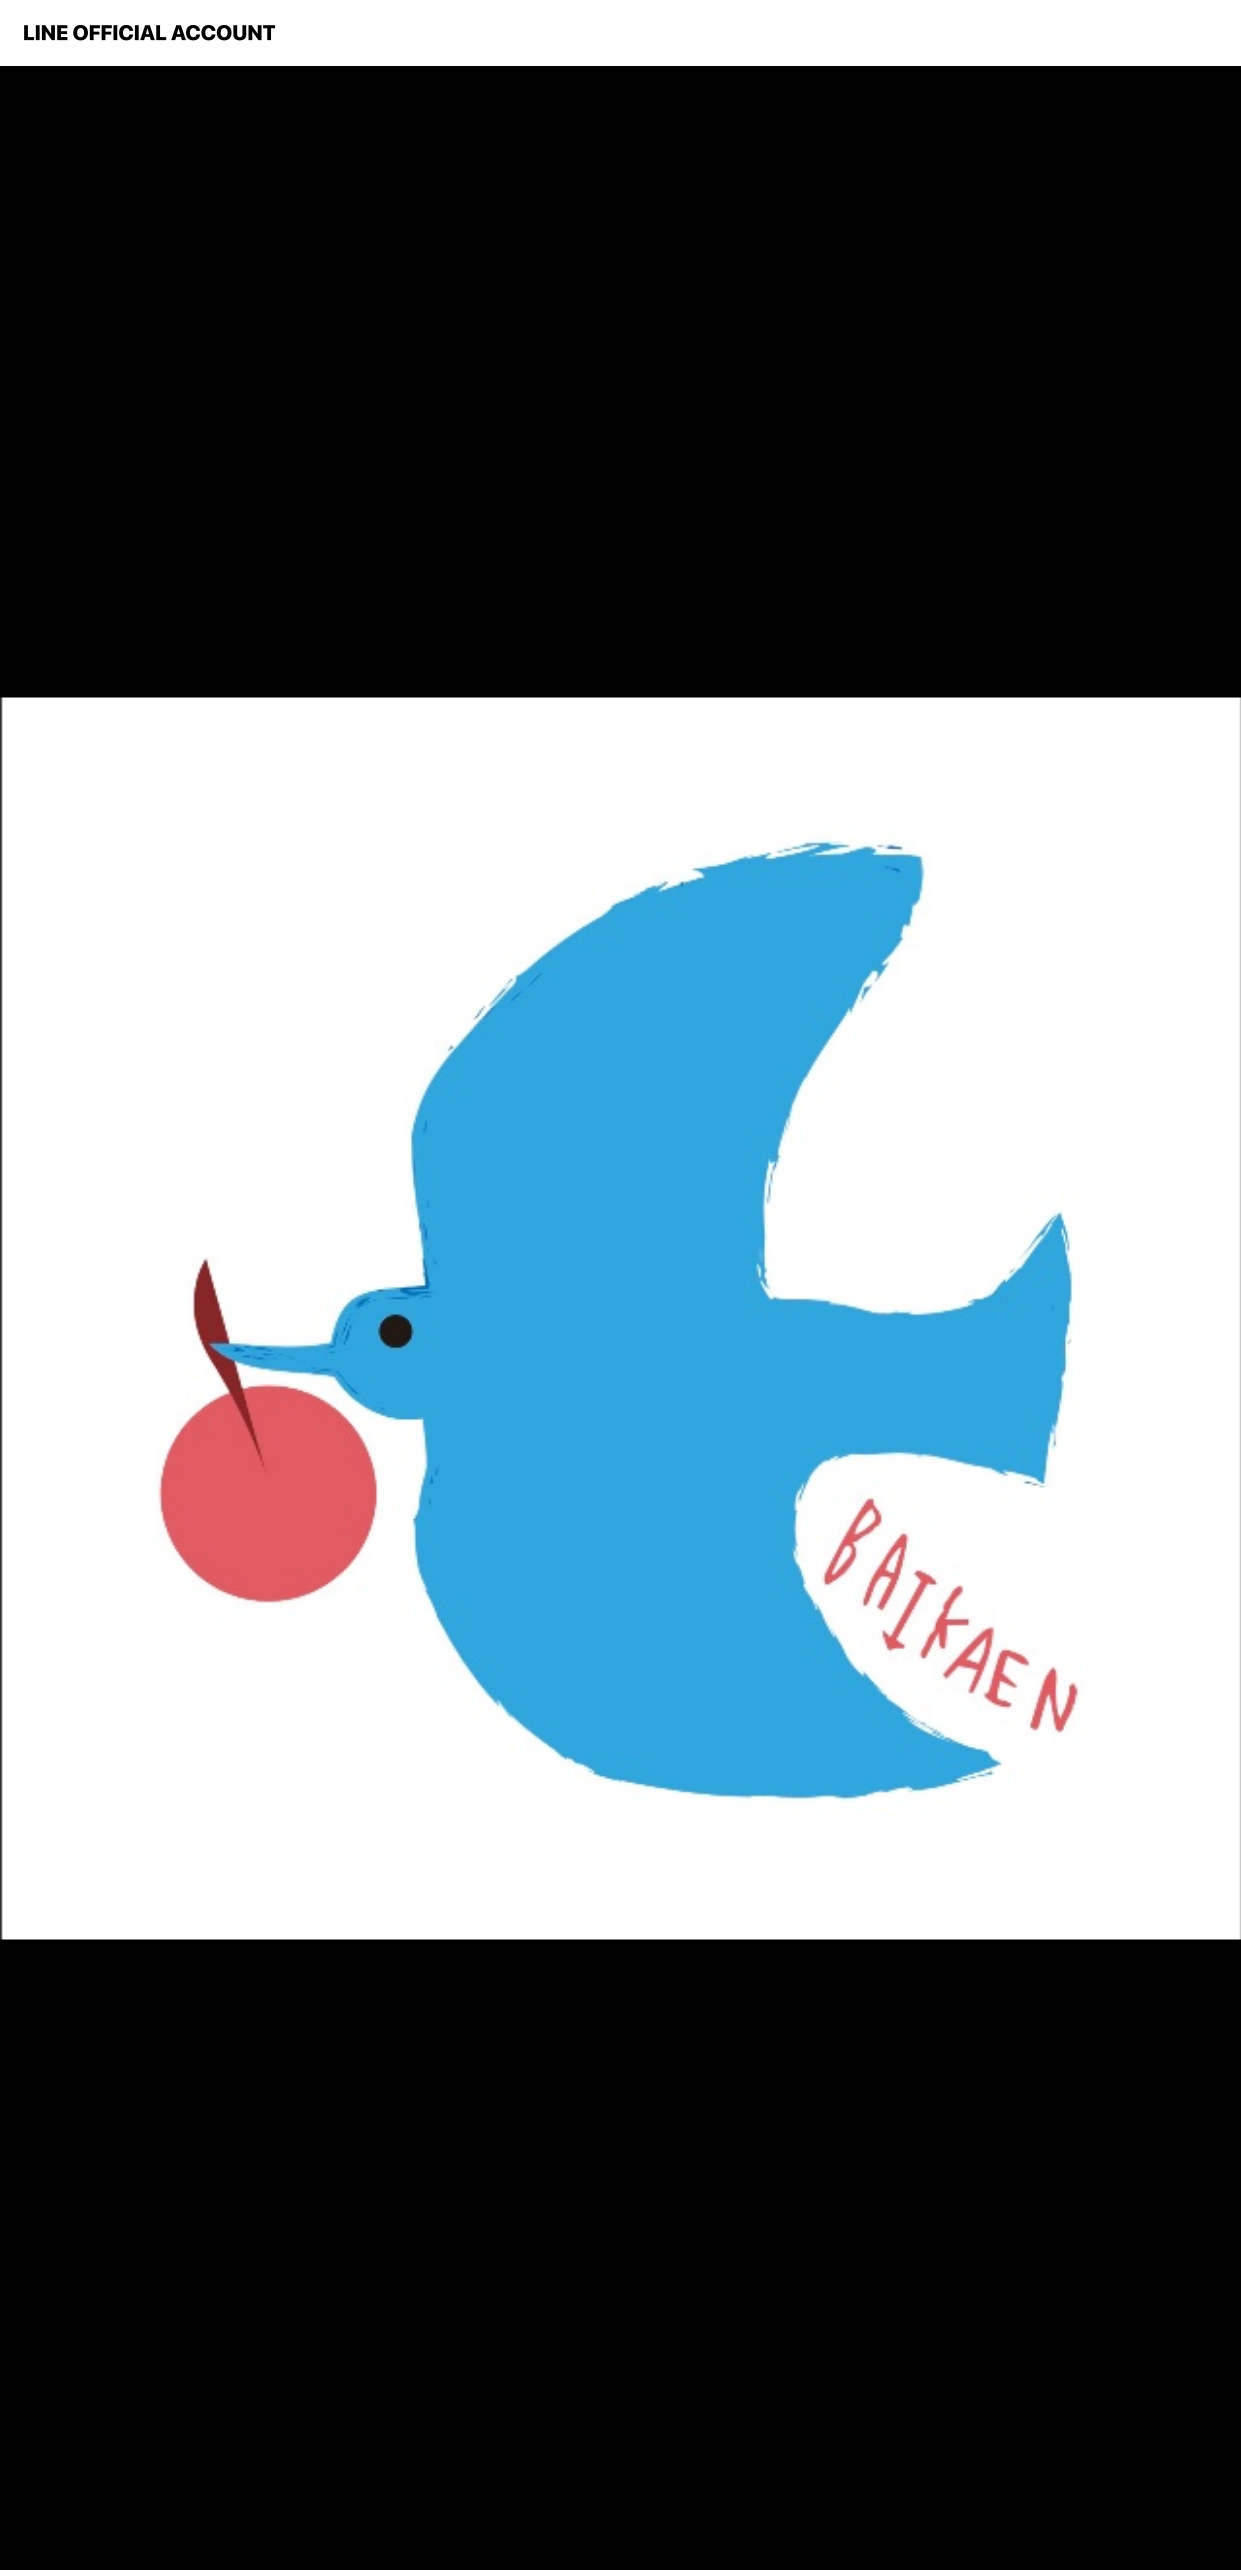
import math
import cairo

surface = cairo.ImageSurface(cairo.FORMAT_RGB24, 1241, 2570)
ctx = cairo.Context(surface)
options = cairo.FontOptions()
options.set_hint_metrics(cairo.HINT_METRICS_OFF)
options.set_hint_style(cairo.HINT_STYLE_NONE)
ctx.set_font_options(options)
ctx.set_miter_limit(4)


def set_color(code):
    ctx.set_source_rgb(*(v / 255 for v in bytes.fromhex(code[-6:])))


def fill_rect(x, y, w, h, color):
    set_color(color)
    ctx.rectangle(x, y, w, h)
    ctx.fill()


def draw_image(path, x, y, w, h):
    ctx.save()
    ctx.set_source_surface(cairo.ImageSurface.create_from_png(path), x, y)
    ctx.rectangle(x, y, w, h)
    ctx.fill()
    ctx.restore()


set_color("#000000")
ctx.paint()
fill_rect(0, 0, 1241, 66, "#ffffff")
draw_image("assets/img1.png", 24, 24, 252, 17)
draw_image("assets/img2.png", 0, 697, 1241, 1243)
surface.write_to_png("output.png")
